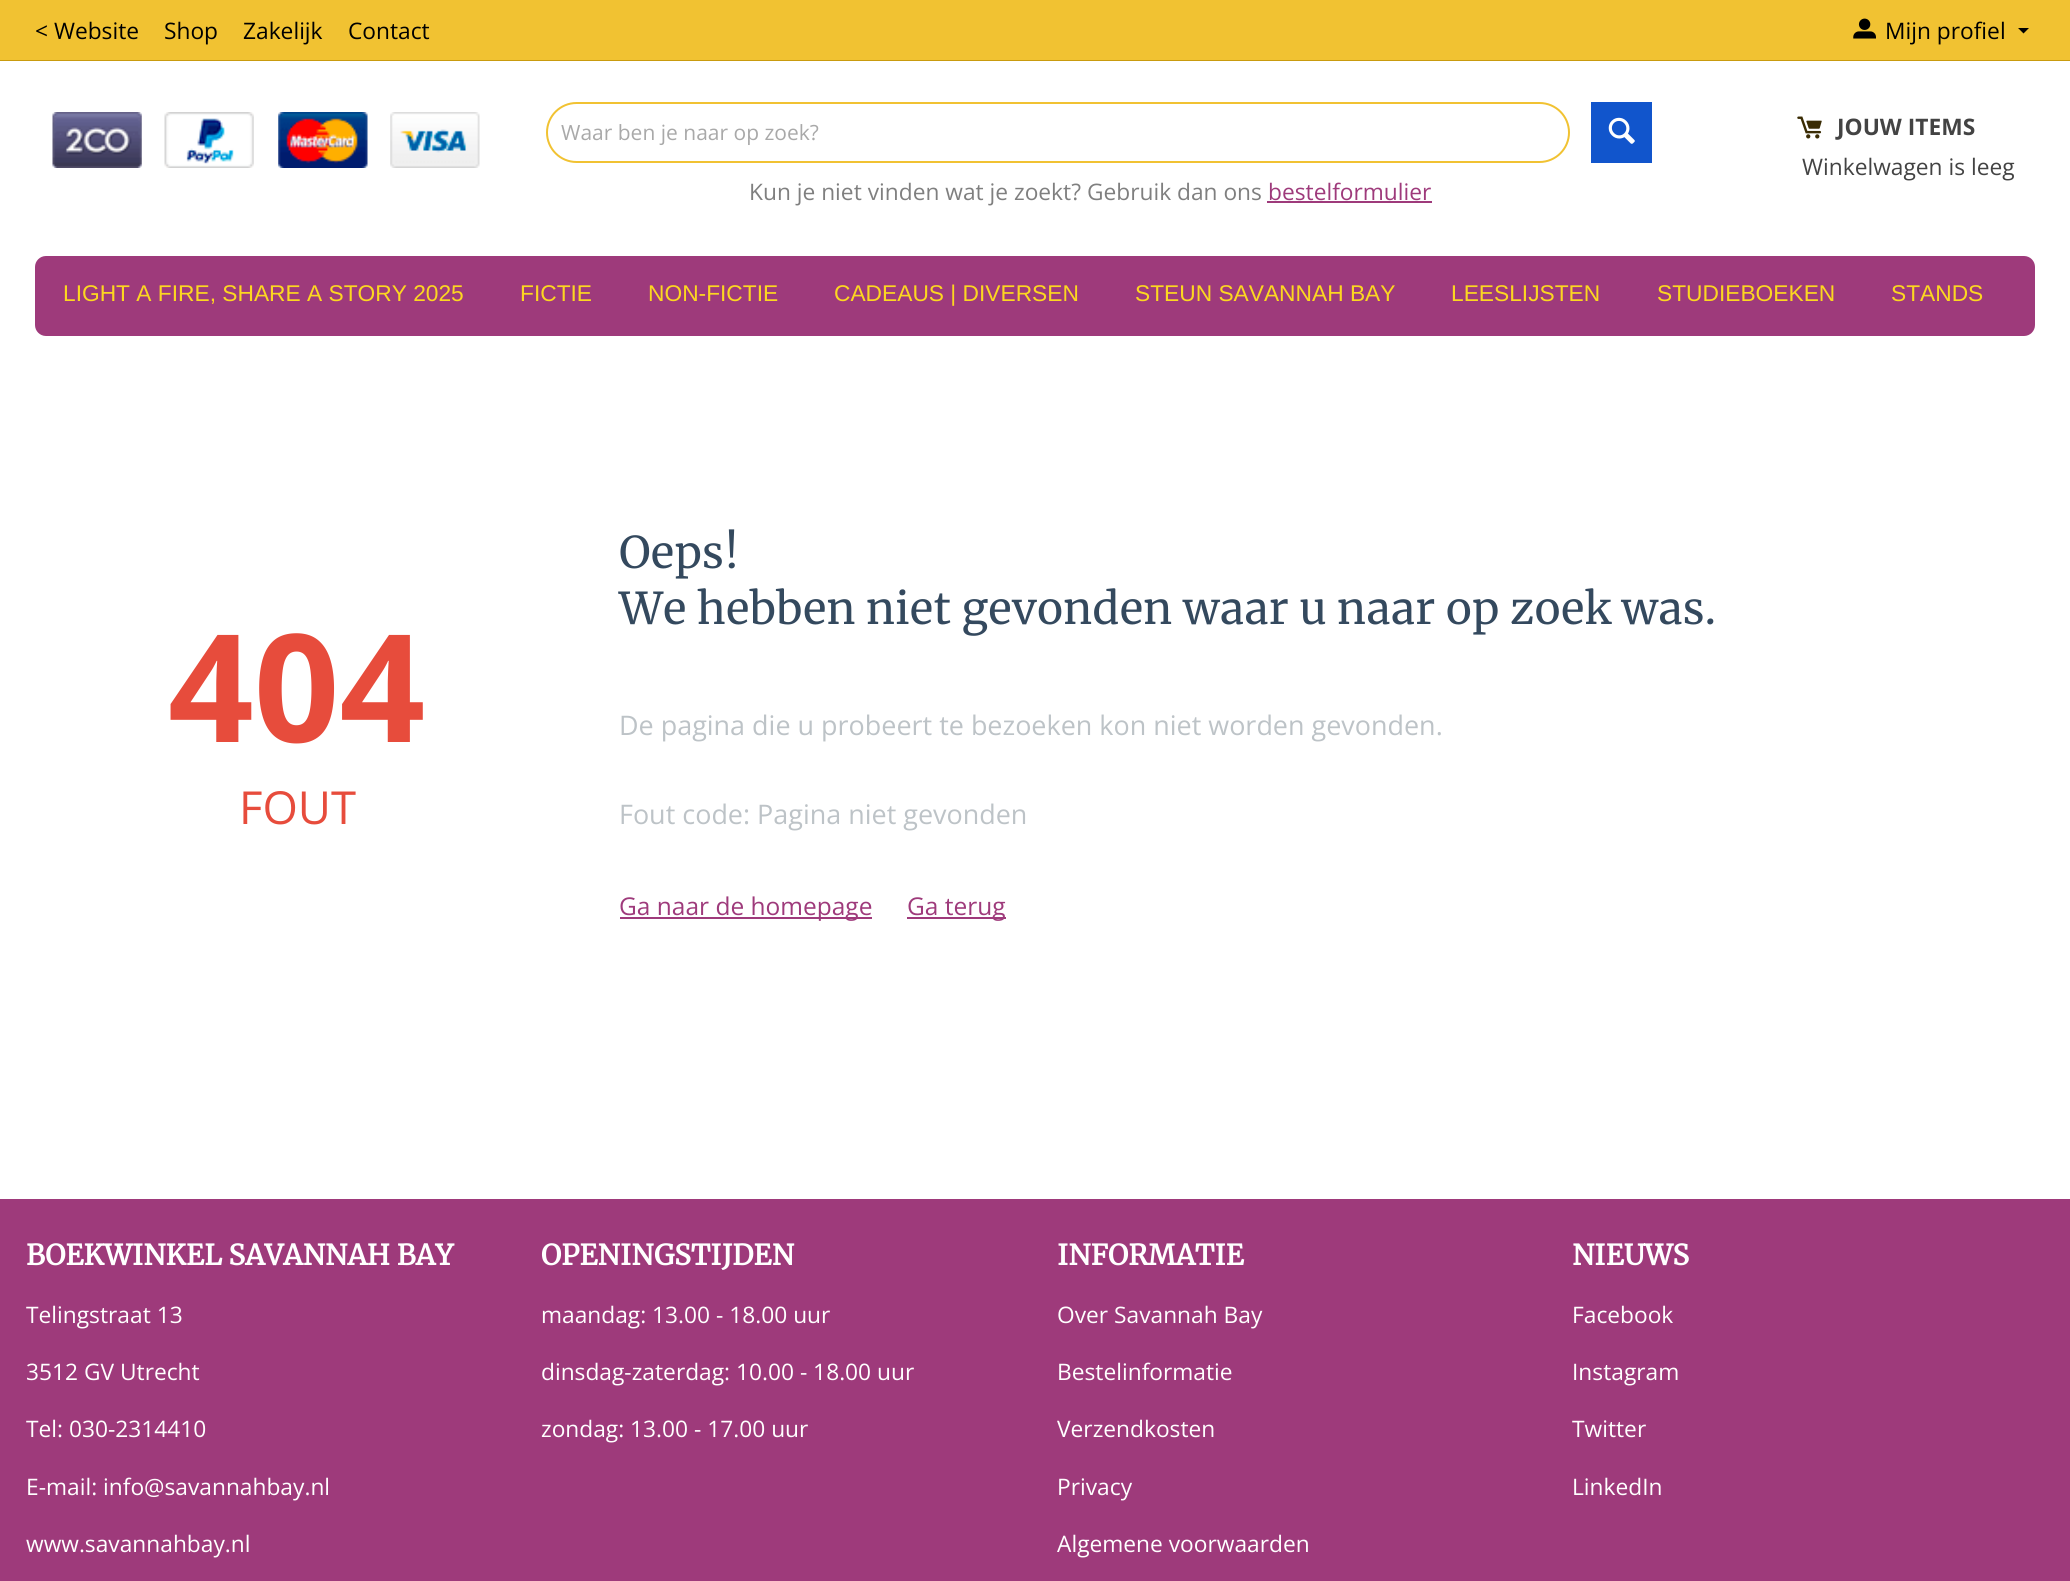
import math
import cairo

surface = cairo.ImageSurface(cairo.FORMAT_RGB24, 2070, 1581)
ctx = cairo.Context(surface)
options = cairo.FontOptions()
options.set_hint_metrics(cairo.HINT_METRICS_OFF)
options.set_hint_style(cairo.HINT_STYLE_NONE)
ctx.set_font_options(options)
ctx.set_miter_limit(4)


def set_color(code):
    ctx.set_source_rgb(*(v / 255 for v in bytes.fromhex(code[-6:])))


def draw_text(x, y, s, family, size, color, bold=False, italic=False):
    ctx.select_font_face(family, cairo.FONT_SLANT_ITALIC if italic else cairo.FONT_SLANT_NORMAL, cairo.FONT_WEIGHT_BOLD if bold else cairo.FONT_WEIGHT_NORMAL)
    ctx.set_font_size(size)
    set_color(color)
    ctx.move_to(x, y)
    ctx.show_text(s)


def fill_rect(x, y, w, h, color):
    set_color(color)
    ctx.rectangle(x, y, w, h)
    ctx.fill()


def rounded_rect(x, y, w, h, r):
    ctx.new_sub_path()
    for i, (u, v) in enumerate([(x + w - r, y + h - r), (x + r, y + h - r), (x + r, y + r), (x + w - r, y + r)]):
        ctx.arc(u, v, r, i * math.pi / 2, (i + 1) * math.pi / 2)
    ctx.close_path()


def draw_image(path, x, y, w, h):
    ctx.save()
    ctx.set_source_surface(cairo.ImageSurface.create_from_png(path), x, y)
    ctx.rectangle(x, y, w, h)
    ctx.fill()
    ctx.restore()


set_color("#f1c232")
ctx.paint()
fill_rect(0, 60, 2070, 1, "#c99b0e")
draw_text(35, 39, "< Website", "Open Sans", 22.75, "#000000")
draw_text(164, 39, "Shop", "Open Sans", 22.75, "#000000")
draw_text(243, 39, "Zakelijk", "Open Sans", 22.75, "#000000")
draw_text(348, 39, "Contact", "Open Sans", 22.75, "#000000")
draw_image("assets/img1.png", 1853, 18, 23, 21)
draw_text(1885, 39, "Mijn profiel", "Open Sans", 22.75, "#000000")
ctx.new_path()
ctx.move_to(2023.5, 33.5)
ctx.line_to(2018, 28)
ctx.line_to(2029, 28)
ctx.close_path()
ctx.fill()
fill_rect(0, 61, 2070, 1138, "#ffffff")
draw_image("assets/img2.png", 52, 112, 90, 56)
draw_image("assets/img3.png", 164, 112, 90, 56)
draw_image("assets/img4.png", 278, 112, 90, 56)
draw_image("assets/img5.png", 390, 112, 90, 56)
rounded_rect(547, 103, 1022, 59, 29.5)
set_color("#f1c232")
ctx.stroke()
draw_text(561, 140, "Waar ben je naar op zoek?", "Open Sans", 21, "#a9a9a9")
fill_rect(1591, 102, 61, 61, "#1155cc")
draw_image("assets/img6.png", 1608, 117, 27, 27)
draw_text(749, 200, "Kun je niet vinden wat je zoekt? Gebruik dan ons", "Open Sans", 22.75, "#7f7f7f")
draw_text(1268, 200, "bestelformulier", "Open Sans", 22.75, "#9e3a7b")
fill_rect(1267, 201, 165, 2, "#9e3a7b")
draw_image("assets/img7.png", 1797, 116, 25, 23)
draw_text(1837, 135, "JOUW ITEMS", "Open Sans", 22.75, "#434343", bold=True)
draw_text(1802, 175, "Winkelwagen is leeg", "Open Sans", 22.75, "#434343")
set_color("#9e3a7b")
rounded_rect(35, 256, 2000, 80, 11)
ctx.fill()
draw_text(63, 301, "LIGHT A FIRE, SHARE A STORY 2025", "Liberation Sans", 22.75, "#fcd720")
draw_text(520, 301, "FICTIE", "Liberation Sans", 22.75, "#fcd720")
draw_text(648, 301, "NON-FICTIE", "Liberation Sans", 22.75, "#fcd720")
draw_text(834, 301, "CADEAUS | DIVERSEN", "Liberation Sans", 22.75, "#fcd720")
draw_text(1135, 301, "STEUN SAVANNAH BAY", "Liberation Sans", 22.75, "#fcd720")
draw_text(1451, 301, "LEESLIJSTEN", "Liberation Sans", 22.75, "#fcd720")
draw_text(1657, 301, "STUDIEBOEKEN", "Liberation Sans", 22.75, "#fcd720")
draw_text(1891, 301, "STANDS", "Liberation Sans", 22.75, "#fcd720")
draw_text(168, 742, "404", "Open Sans", 150, "#e74c3c", bold=True)
draw_text(239, 824, "FOUT", "Open Sans", 45.5, "#e74c3c")
draw_text(619, 568, "Oeps!", "Merriweather", 43.75, "#34495e")
draw_text(619, 624, "We hebben niet gevonden waar u naar op zoek was.", "Merriweather", 43.75, "#34495e")
draw_text(619, 735, "De pagina die u probeert te bezoeken kon niet worden gevonden.", "Open Sans", 26.95, "#bdc3c7")
draw_text(619, 824, "Fout code: Pagina niet gevonden", "Open Sans", 26.95, "#bdc3c7")
fill_rect(620, 917, 252, 2, "#9e3a7b")
draw_text(619, 915, "Ga naar de homepage", "Open Sans", 24.5, "#9e3a7b")
fill_rect(907, 917, 99, 2, "#9e3a7b")
draw_text(907, 915, "Ga terug", "Open Sans", 24.5, "#9e3a7b")
fill_rect(0, 1199, 2070, 382, "#9e3a7b")
draw_text(26, 1265, "BOEKWINKEL SAVANNAH BAY", "Merriweather", 28, "#ffffff", bold=True)
draw_text(26, 1323, "Telingstraat 13", "Open Sans", 22.75, "#ffffff")
draw_text(26, 1380, "3512 GV Utrecht", "Open Sans", 22.75, "#ffffff")
draw_text(26, 1437, "Tel: 030-2314410", "Open Sans", 22.75, "#ffffff")
draw_text(26, 1495, "E-mail: info@savannahbay.nl", "Open Sans", 22.75, "#ffffff")
draw_text(26, 1552, "www.savannahbay.nl", "Open Sans", 22.75, "#ffffff")
draw_text(541, 1265, "OPENINGSTIJDEN", "Merriweather", 28, "#ffffff", bold=True)
draw_text(541, 1323, "maandag: 13.00 - 18.00 uur", "Open Sans", 22.75, "#ffffff")
draw_text(541, 1380, "dinsdag-zaterdag: 10.00 - 18.00 uur", "Open Sans", 22.75, "#ffffff")
draw_text(541, 1437, "zondag: 13.00 - 17.00 uur", "Open Sans", 22.75, "#ffffff")
draw_text(1057, 1265, "INFORMATIE", "Merriweather", 28, "#ffffff", bold=True)
draw_text(1057, 1323, "Over Savannah Bay", "Open Sans", 22.75, "#ffffff")
draw_text(1057, 1380, "Bestelinformatie", "Open Sans", 22.75, "#ffffff")
draw_text(1057, 1437, "Verzendkosten", "Open Sans", 22.75, "#ffffff")
draw_text(1057, 1495, "Privacy", "Open Sans", 22.75, "#ffffff")
draw_text(1057, 1552, "Algemene voorwaarden", "Open Sans", 22.75, "#ffffff")
draw_text(1572, 1265, "NIEUWS", "Merriweather", 28, "#ffffff", bold=True)
draw_text(1572, 1323, "Facebook", "Open Sans", 22.75, "#ffffff")
draw_text(1572, 1380, "Instagram", "Open Sans", 22.75, "#ffffff")
draw_text(1572, 1437, "Twitter", "Open Sans", 22.75, "#ffffff")
draw_text(1572, 1495, "LinkedIn", "Open Sans", 22.75, "#ffffff")
surface.write_to_png("output.png")
